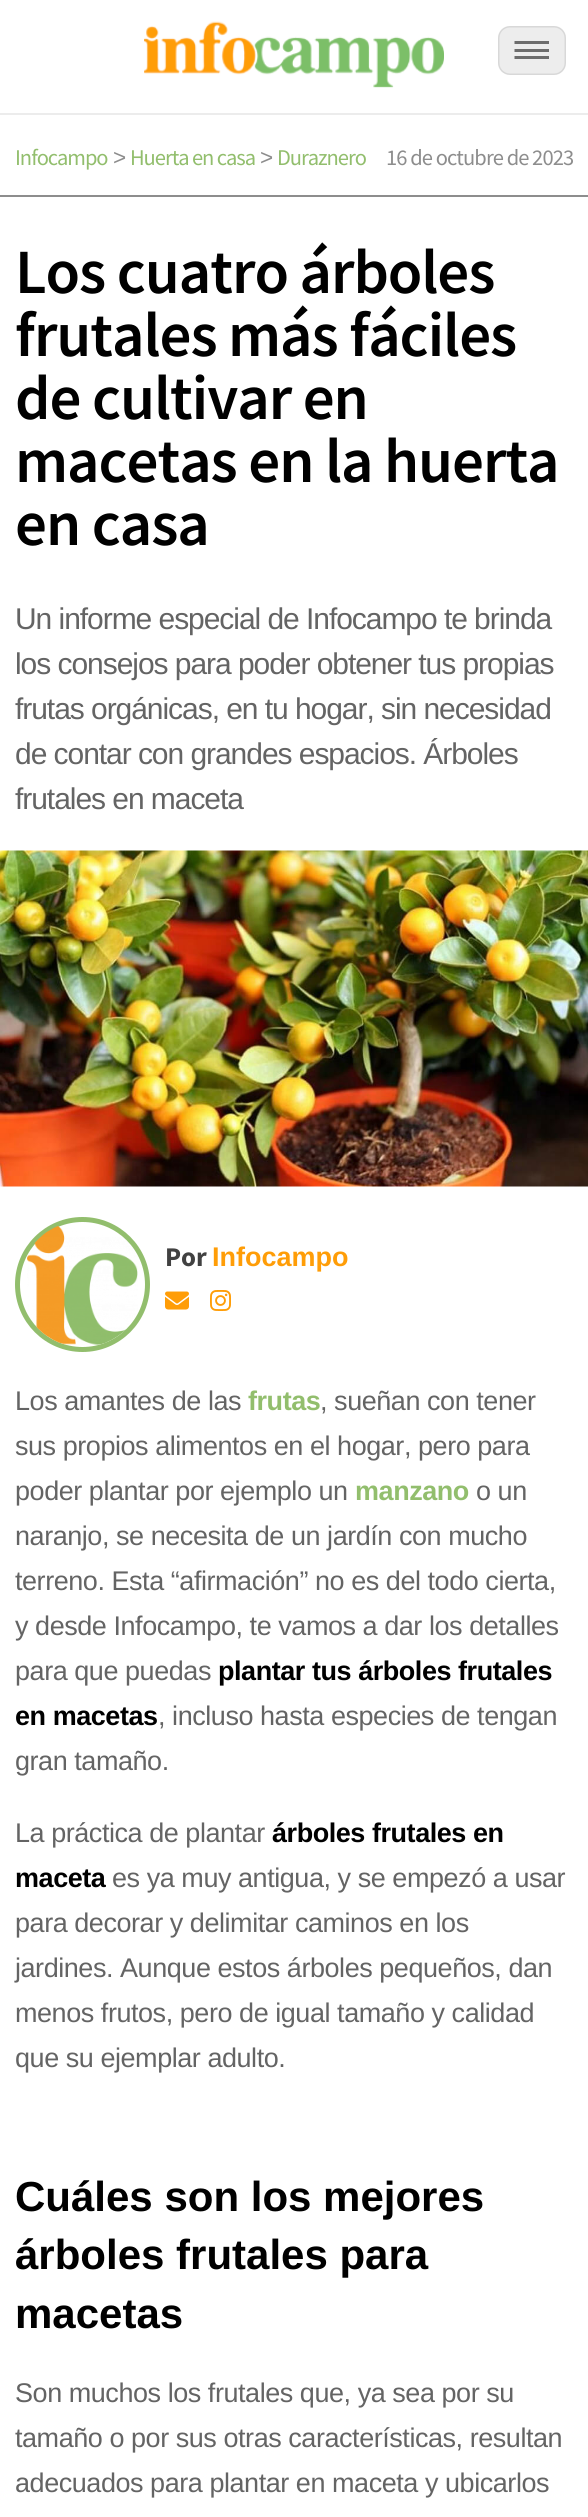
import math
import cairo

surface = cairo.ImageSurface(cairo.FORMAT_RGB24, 588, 2517)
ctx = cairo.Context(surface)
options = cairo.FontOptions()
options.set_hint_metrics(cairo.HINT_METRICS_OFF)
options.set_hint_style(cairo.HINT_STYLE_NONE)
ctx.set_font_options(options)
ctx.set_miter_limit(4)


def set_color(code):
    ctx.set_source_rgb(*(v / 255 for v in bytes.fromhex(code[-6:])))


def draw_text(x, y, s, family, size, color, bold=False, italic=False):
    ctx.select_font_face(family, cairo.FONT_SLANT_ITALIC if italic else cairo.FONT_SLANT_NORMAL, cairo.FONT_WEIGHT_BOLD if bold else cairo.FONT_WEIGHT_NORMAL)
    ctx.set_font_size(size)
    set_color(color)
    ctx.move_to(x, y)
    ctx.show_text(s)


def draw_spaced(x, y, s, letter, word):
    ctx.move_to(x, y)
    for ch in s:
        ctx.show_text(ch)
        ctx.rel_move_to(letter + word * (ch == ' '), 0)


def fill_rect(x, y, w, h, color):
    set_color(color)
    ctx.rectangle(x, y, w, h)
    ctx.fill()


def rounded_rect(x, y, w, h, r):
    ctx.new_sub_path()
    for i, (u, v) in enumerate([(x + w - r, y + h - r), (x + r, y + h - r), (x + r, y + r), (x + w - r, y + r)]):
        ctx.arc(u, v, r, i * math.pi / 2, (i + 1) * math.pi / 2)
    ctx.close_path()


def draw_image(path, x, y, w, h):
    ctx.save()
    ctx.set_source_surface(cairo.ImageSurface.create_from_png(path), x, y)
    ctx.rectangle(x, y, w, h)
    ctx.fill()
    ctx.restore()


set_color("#ffffff")
ctx.paint()
fill_rect(0, 113, 588, 2, "#ececec")
draw_image("assets/img1.png", 144, 21, 300, 67)
set_color("#ededed")
rounded_rect(498, 26, 68, 49, 12)
ctx.fill()
rounded_rect(498.75, 26.75, 66.5, 47.5, 11.25)
ctx.set_source_rgba(0.439, 0.439, 0.439, 0.17)
ctx.set_line_width(1.5)
ctx.stroke()
set_color("#6d6d6d")
ctx.set_fill_rule(cairo.FILL_RULE_EVEN_ODD)
ctx.new_path()
ctx.move_to(514.5, 59)
ctx.line_to(549, 59)
ctx.line_to(549, 56)
ctx.line_to(514.5, 56)
ctx.close_path()
ctx.move_to(514.5, 52)
ctx.line_to(549, 52)
ctx.line_to(549, 49)
ctx.line_to(514.5, 49)
ctx.close_path()
ctx.move_to(514.5, 41)
ctx.line_to(514.5, 44)
ctx.line_to(549, 44)
ctx.line_to(549, 41)
ctx.close_path()
ctx.fill()
fill_rect(0, 195, 588, 2, "#8d8d8d")
ctx.select_font_face("Source Sans Pro")
ctx.set_font_size(22.5)
set_color("#92be6d")
draw_spaced(15, 165, "Infocampo", -1.05, 0)
ctx.select_font_face("Liberation Sans")
set_color("#8d8d8d")
draw_spaced(113, 165, ">", -1.05, 0)
ctx.select_font_face("Source Sans Pro")
set_color("#92be6d")
draw_spaced(130, 165, "Huerta en casa", -1.05, 0)
ctx.select_font_face("Liberation Sans")
set_color("#8d8d8d")
draw_spaced(260, 165, ">", -1.05, 0)
ctx.select_font_face("Source Sans Pro")
set_color("#92be6d")
draw_spaced(277, 165, "Duraznero", -1.05, 0)
set_color("#8d8d8d")
draw_spaced(386, 165, "16 de octubre de 2023", -0.9, 0)
ctx.select_font_face("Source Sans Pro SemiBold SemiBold")
ctx.set_font_size(63)
set_color("#000000")
draw_spaced(15, 293, "Los cuatro árboles", -1.05, 0)
draw_spaced(15, 356, "frutales más fáciles", -1.05, 0)
draw_spaced(15, 419, "de cultivar en", -1.05, 0)
draw_spaced(15, 482, "macetas en la huerta", -1.05, 0)
draw_spaced(15, 545, "en casa", -1.05, 0)
ctx.select_font_face("Liberation Sans")
ctx.set_font_size(30)
set_color("#646464")
draw_spaced(15, 629, "Un informe especial de Infocampo te brinda", -1.05, 0)
draw_spaced(15, 674, "los consejos para poder obtener tus propias", -1.05, 0)
draw_spaced(15, 719, "frutas orgánicas, en tu hogar, sin necesidad", -1.05, 0)
draw_spaced(15, 764, "de contar con grandes espacios. Árboles", -1.05, 0)
draw_spaced(15, 809, "frutales en maceta", -1.05, 0)
draw_image("assets/img2.png", 0, 850, 588, 337)
ctx.arc(82.5, 1284.5, 65, 0, 2 * math.pi)
set_color("#92be6d")
ctx.set_line_width(5)
ctx.stroke()
draw_image("assets/img3.png", 27, 1226, 111, 119)
draw_text(165, 1266, "Por", "Source Sans Pro", 27, "#414141", bold=True)
draw_text(212, 1266, "Infocampo", "Liberation Sans", 27, "#ff9d07", bold=True)
draw_image("assets/img4.png", 165, 1291, 24, 19)
draw_image("assets/img5.png", 210, 1290, 21, 21)
ctx.select_font_face("Liberation Sans")
set_color("#646464")
draw_spaced(15, 1410, "Los amantes de las", -0.45, 0)
ctx.select_font_face("Liberation Sans", cairo.FONT_SLANT_NORMAL, cairo.FONT_WEIGHT_BOLD)
set_color("#92be6d")
draw_spaced(248, 1410, "frutas", -0.45, 0)
ctx.select_font_face("Liberation Sans")
set_color("#646464")
draw_spaced(320, 1410, ", sueñan con tener", -0.45, 0)
draw_spaced(15, 1455, "sus propios alimentos en el hogar, pero para", -0.45, 0)
draw_spaced(15, 1500, "poder plantar por ejemplo un", -0.45, 0)
ctx.select_font_face("Liberation Sans", cairo.FONT_SLANT_NORMAL, cairo.FONT_WEIGHT_BOLD)
set_color("#92be6d")
draw_spaced(355, 1500, "manzano", -0.45, 0)
ctx.select_font_face("Liberation Sans")
set_color("#646464")
draw_spaced(476, 1500, "o un", -0.45, 0)
draw_spaced(15, 1545, "naranjo, se necesita de un jardín con mucho", -0.45, 0)
draw_spaced(15, 1590, "terreno. Esta “afirmación” no es del todo cierta,", -0.45, 0)
draw_spaced(15, 1635, "y desde Infocampo, te vamos a dar los detalles", -0.45, 0)
draw_spaced(15, 1680, "para que puedas", -0.45, 0)
ctx.select_font_face("Liberation Sans", cairo.FONT_SLANT_NORMAL, cairo.FONT_WEIGHT_BOLD)
set_color("#000000")
draw_spaced(218, 1680, "plantar tus árboles frutales", -0.45, 0)
draw_spaced(15, 1725, "en macetas", -0.45, 0)
ctx.select_font_face("Liberation Sans")
set_color("#646464")
draw_spaced(158, 1725, ", incluso hasta especies de tengan", -0.45, 0)
draw_spaced(15, 1770, "gran tamaño.", -0.45, 0)
draw_spaced(15, 1842, "La práctica de plantar", -0.45, 0)
ctx.select_font_face("Liberation Sans", cairo.FONT_SLANT_NORMAL, cairo.FONT_WEIGHT_BOLD)
set_color("#000000")
draw_spaced(272, 1842, "árboles frutales en", -0.45, 0)
draw_spaced(15, 1887, "maceta", -0.45, 0)
ctx.select_font_face("Liberation Sans")
set_color("#646464")
draw_spaced(112, 1887, "es ya muy antigua, y se empezó a usar", -0.45, 0)
draw_spaced(15, 1932, "para decorar y delimitar caminos en los", -0.45, 0)
draw_spaced(15, 1977, "jardines. Aunque estos árboles pequeños, dan", -0.45, 0)
draw_spaced(15, 2022, "menos frutos, pero de igual tamaño y calidad", -0.45, 0)
draw_spaced(15, 2067, "que su ejemplar adulto.", -0.45, 0)
draw_text(15, 2211, "Cuáles son los mejores", "Liberation Sans", 42, "#000000", bold=True)
draw_text(15, 2269, "árboles frutales para", "Liberation Sans", 42, "#000000", bold=True)
draw_text(15, 2328, "macetas", "Liberation Sans", 42, "#000000", bold=True)
ctx.select_font_face("Liberation Sans")
ctx.set_font_size(27)
set_color("#646464")
draw_spaced(15, 2402, "Son muchos los frutales que, ya sea por su", -0.45, 0)
draw_spaced(15, 2447, "tamaño o por sus otras características, resultan", -0.45, 0)
draw_spaced(15, 2492, "adecuados para plantar en maceta y ubicarlos", -0.45, 0)
surface.write_to_png("output.png")
